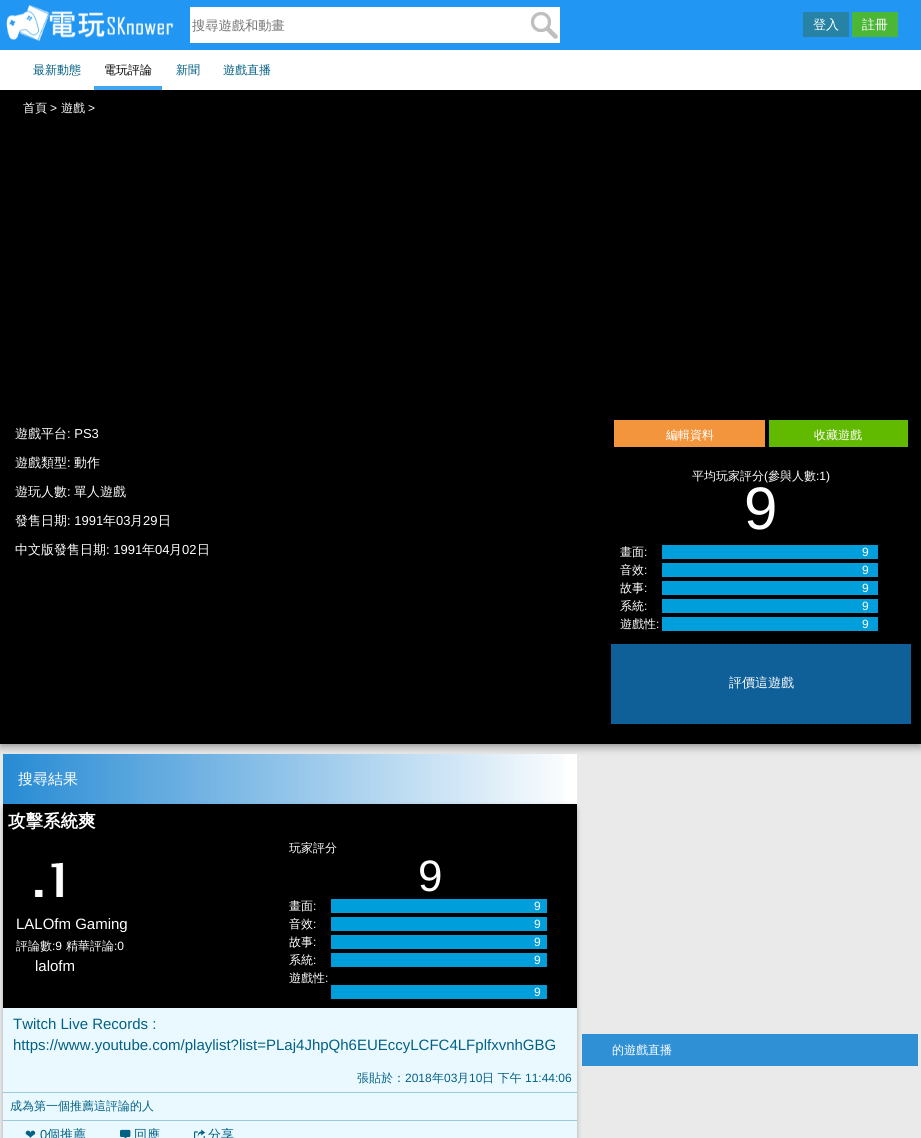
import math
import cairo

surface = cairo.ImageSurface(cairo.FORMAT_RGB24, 921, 1138)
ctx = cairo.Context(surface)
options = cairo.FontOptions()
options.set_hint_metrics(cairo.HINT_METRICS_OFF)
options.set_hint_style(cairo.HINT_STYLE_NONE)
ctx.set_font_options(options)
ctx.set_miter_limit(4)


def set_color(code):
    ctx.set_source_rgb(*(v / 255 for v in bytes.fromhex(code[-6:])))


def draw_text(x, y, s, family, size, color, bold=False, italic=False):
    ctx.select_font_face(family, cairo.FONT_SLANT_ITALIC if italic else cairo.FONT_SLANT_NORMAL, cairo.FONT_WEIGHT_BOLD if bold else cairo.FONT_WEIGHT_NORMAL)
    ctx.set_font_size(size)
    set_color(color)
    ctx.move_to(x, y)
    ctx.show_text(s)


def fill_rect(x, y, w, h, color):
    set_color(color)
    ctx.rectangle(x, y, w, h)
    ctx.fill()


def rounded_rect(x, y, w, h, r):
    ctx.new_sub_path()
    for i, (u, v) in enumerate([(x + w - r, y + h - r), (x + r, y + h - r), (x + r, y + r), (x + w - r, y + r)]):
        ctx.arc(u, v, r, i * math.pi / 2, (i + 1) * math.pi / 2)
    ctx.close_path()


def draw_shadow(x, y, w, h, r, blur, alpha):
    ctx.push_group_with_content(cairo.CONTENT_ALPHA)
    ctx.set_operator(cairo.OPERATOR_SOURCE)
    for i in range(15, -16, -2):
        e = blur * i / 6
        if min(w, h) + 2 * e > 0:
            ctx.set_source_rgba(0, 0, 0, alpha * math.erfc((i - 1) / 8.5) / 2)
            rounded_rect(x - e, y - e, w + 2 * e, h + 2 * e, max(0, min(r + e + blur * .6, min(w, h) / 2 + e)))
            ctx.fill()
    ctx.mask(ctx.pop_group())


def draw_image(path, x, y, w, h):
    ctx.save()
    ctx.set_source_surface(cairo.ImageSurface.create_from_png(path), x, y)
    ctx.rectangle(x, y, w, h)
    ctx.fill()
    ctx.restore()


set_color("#eaeaea")
ctx.paint()
set_color("#000000")
draw_shadow(0, 94, 921, 654, 0, 4, 0.28)
draw_shadow(0, 90, 921, 654, 0, 2, 0.14)
fill_rect(0, 90, 921, 654, "#000000")
set_color("#000000")
draw_shadow(0, 52, 921, 40, 0, 2.5, 0.26)
fill_rect(0, 0, 921, 50, "#2196f3")
draw_image("assets/img1.png", 6, 4, 168, 38)
fill_rect(190, 7, 370, 36, "#ffffff")
draw_image("assets/img2.png", 531, 12, 27, 27)
draw_text(192, 30, "搜尋遊戲和動畫", "WenQuanYi Zen Hei Medium", 13.25, "#757575")
fill_rect(803, 12, 46, 25, "#2783a5")
draw_text(813, 29, "登入", "WenQuanYi Zen Hei Medium", 13, "#ffffff")
fill_rect(852, 12, 46, 25, "#4cb636")
draw_text(862, 29, "註冊", "WenQuanYi Zen Hei Medium", 13, "#ffffff")
fill_rect(0, 50, 921, 40, "#ffffff")
draw_text(33, 74, "最新動態", "WenQuanYi Zen Hei Medium", 12, "#026084")
draw_text(104, 74, "電玩評論", "WenQuanYi Zen Hei Medium", 12, "#000000")
fill_rect(94, 86, 68, 4, "#40a6ef")
draw_text(176, 74, "新聞", "WenQuanYi Zen Hei Medium", 12, "#026084")
draw_text(223, 74, "遊戲直播", "WenQuanYi Zen Hei Medium", 12, "#026084")
draw_text(23, 112, "首頁", "WenQuanYi Zen Hei Medium", 12, "#ffffff")
draw_text(50, 112, ">", "Liberation Sans", 12, "#ffffff")
draw_text(61, 112, "遊戲", "WenQuanYi Zen Hei Medium", 12, "#ffffff")
draw_text(88, 112, ">", "Liberation Sans", 12, "#ffffff")
draw_text(15, 438, "遊戲平台", "WenQuanYi Zen Hei Medium", 13, "#ffffff")
draw_text(67, 438, ": PS3", "Liberation Sans", 13, "#ffffff")
draw_text(15, 467, "遊戲類型", "WenQuanYi Zen Hei Medium", 13, "#ffffff")
draw_text(67, 467, ":", "Liberation Sans", 13, "#ffffff")
draw_text(74, 467, "動作", "WenQuanYi Zen Hei Medium", 13, "#ffffff")
draw_text(15, 496, "遊玩人數", "WenQuanYi Zen Hei Medium", 13, "#ffffff")
draw_text(67, 496, ":", "Liberation Sans", 13, "#ffffff")
draw_text(74, 496, "單人遊戲", "WenQuanYi Zen Hei Medium", 13, "#ffffff")
draw_text(15, 525, "發售日期", "WenQuanYi Zen Hei Medium", 13, "#ffffff")
draw_text(67, 525, ": 1991", "Liberation Sans", 13, "#ffffff")
draw_text(103, 525, "年", "WenQuanYi Zen Hei Medium", 13, "#ffffff")
draw_text(116, 525, "03", "Liberation Sans", 13, "#ffffff")
draw_text(130, 525, "月", "WenQuanYi Zen Hei Medium", 13, "#ffffff")
draw_text(143, 525, "29", "Liberation Sans", 13, "#ffffff")
draw_text(158, 525, "日", "WenQuanYi Zen Hei Medium", 13, "#ffffff")
draw_text(15, 554, "中文版發售日期", "WenQuanYi Zen Hei Medium", 13, "#ffffff")
draw_text(106, 554, ": 1991", "Liberation Sans", 13, "#ffffff")
draw_text(142, 554, "年", "WenQuanYi Zen Hei Medium", 13, "#ffffff")
draw_text(155, 554, "04", "Liberation Sans", 13, "#ffffff")
draw_text(169, 554, "月", "WenQuanYi Zen Hei Medium", 13, "#ffffff")
draw_text(182, 554, "02", "Liberation Sans", 13, "#ffffff")
draw_text(197, 554, "日", "WenQuanYi Zen Hei Medium", 13, "#ffffff")
fill_rect(614, 420, 151, 27, "#f3953d")
draw_text(666, 439, "編輯資料", "WenQuanYi Zen Hei Medium", 12, "#ffffff")
fill_rect(769, 420, 139, 27, "#61b900")
draw_text(814, 439, "收藏遊戲", "WenQuanYi Zen Hei Medium", 12, "#ffffff")
draw_text(692, 480, "平均玩家評分", "WenQuanYi Zen Hei Medium", 12, "#ffffff")
draw_text(764, 480, "(", "Liberation Sans", 12, "#ffffff")
draw_text(768, 480, "參與人數", "WenQuanYi Zen Hei Medium", 12, "#ffffff")
draw_text(816, 480, ":1)", "Liberation Sans", 12, "#ffffff")
draw_text(744, 529, "9", "Liberation Sans", 60, "#ffffff")
draw_text(620, 556, "畫面", "WenQuanYi Zen Hei Medium", 12, "#ffffff")
draw_text(644, 556, ":", "Liberation Sans", 12, "#ffffff")
fill_rect(662, 545, 216, 14, "#009eda")
draw_text(862, 556, "9", "Liberation Sans", 12, "#ffffff")
draw_text(620, 574, "音效", "WenQuanYi Zen Hei Medium", 12, "#ffffff")
draw_text(644, 574, ":", "Liberation Sans", 12, "#ffffff")
fill_rect(662, 563, 216, 14, "#009eda")
draw_text(862, 574, "9", "Liberation Sans", 12, "#ffffff")
draw_text(620, 592, "故事", "WenQuanYi Zen Hei Medium", 12, "#ffffff")
draw_text(644, 592, ":", "Liberation Sans", 12, "#ffffff")
fill_rect(662, 581, 216, 14, "#009eda")
draw_text(862, 592, "9", "Liberation Sans", 12, "#ffffff")
draw_text(620, 610, "系統", "WenQuanYi Zen Hei Medium", 12, "#ffffff")
draw_text(644, 610, ":", "Liberation Sans", 12, "#ffffff")
fill_rect(662, 599, 216, 14, "#009eda")
draw_text(862, 610, "9", "Liberation Sans", 12, "#ffffff")
draw_text(620, 628, "遊戲性", "WenQuanYi Zen Hei Medium", 12, "#ffffff")
draw_text(656, 628, ":", "Liberation Sans", 12, "#ffffff")
fill_rect(662, 617, 216, 14, "#009eda")
draw_text(862, 628, "9", "Liberation Sans", 12, "#ffffff")
fill_rect(611, 644, 300, 80, "#0f5f99")
draw_text(729, 687, "評價這遊戲", "WenQuanYi Zen Hei Medium", 13, "#ffffff")
fill_rect(6, 754, 571, 50, "#ffffff")
set_color("#000000")
draw_shadow(3, 806, 574, 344, 4, 2.5, 0.26)
gradient = cairo.LinearGradient(3, 779, 577, 779)
gradient.add_color_stop_rgba(0, 0.153, 0.545, 0.831, 1)
gradient.add_color_stop_rgba(1, 0.153, 0.545, 0.831, 0)
ctx.set_source(gradient)
ctx.rectangle(3, 754, 562, 50)
ctx.fill()
draw_text(18, 784, "搜尋結果", "WenQuanYi Zen Hei Medium", 15, "#ffffff")
fill_rect(3, 804, 574, 204, "#000000")
draw_text(8, 827, "攻擊系統爽", "WenQuanYi Zen Hei", 17.5, "#ffffff", bold=True)
draw_image("assets/img3.png", 34, 862, 30, 35)
draw_text(16, 929, "LALOfm Gaming", "Liberation Sans", 15, "#ffffff")
draw_text(16, 950, "評論數", "WenQuanYi Zen Hei Medium", 12, "#ffffff")
draw_text(52, 950, ":9", "Liberation Sans", 12, "#ffffff")
draw_text(66, 950, "精華評論", "WenQuanYi Zen Hei Medium", 12, "#ffffff")
draw_text(114, 950, ":0", "Liberation Sans", 12, "#ffffff")
draw_text(35, 971, "lalofm", "Liberation Sans", 15, "#ffffff")
draw_text(289, 852, "玩家評分", "WenQuanYi Zen Hei Medium", 12, "#ffffff")
draw_text(418, 891, "9", "Liberation Sans", 44, "#ffffff")
draw_text(289, 910, "畫面", "WenQuanYi Zen Hei Medium", 12, "#ffffff")
draw_text(313, 910, ":", "Liberation Sans", 12, "#ffffff")
fill_rect(331, 899, 216, 14, "#009eda")
draw_text(534, 910, "9", "Liberation Sans", 12, "#ffffff")
draw_text(289, 928, "音效", "WenQuanYi Zen Hei Medium", 12, "#ffffff")
draw_text(313, 928, ":", "Liberation Sans", 12, "#ffffff")
fill_rect(331, 917, 216, 14, "#009eda")
draw_text(534, 928, "9", "Liberation Sans", 12, "#ffffff")
draw_text(289, 946, "故事", "WenQuanYi Zen Hei Medium", 12, "#ffffff")
draw_text(313, 946, ":", "Liberation Sans", 12, "#ffffff")
fill_rect(331, 935, 216, 14, "#009eda")
draw_text(534, 946, "9", "Liberation Sans", 12, "#ffffff")
draw_text(289, 964, "系統", "WenQuanYi Zen Hei Medium", 12, "#ffffff")
draw_text(313, 964, ":", "Liberation Sans", 12, "#ffffff")
fill_rect(331, 953, 216, 14, "#009eda")
draw_text(534, 964, "9", "Liberation Sans", 12, "#ffffff")
draw_text(289, 982, "遊戲性", "WenQuanYi Zen Hei Medium", 12, "#ffffff")
draw_text(325, 982, ":", "Liberation Sans", 12, "#ffffff")
fill_rect(331, 985, 216, 14, "#009eda")
draw_text(534, 996, "9", "Liberation Sans", 12, "#ffffff")
fill_rect(3, 1008, 574, 130, "#eaf9ff")
draw_text(13, 1029, "Twitch Live Records :", "Liberation Sans", 15, "#026084")
draw_text(13, 1050, "https://www.youtube.com/playlist?list=PLaj4JhpQh6EUEccyLCFC4LFplfxvnhGBG", "Liberation Sans", 15, "#026084")
draw_text(357, 1082, "張貼於：", "WenQuanYi Zen Hei Medium", 12, "#026084")
draw_text(405, 1082, "2018", "Liberation Sans", 12, "#026084")
draw_text(432, 1082, "年", "WenQuanYi Zen Hei Medium", 12, "#026084")
draw_text(444, 1082, "03", "Liberation Sans", 12, "#026084")
draw_text(457, 1082, "月", "WenQuanYi Zen Hei Medium", 12, "#026084")
draw_text(469, 1082, "10", "Liberation Sans", 12, "#026084")
draw_text(482, 1082, "日 下午", "WenQuanYi Zen Hei Medium", 12, "#026084")
draw_text(525, 1082, "11:44:06", "Liberation Sans", 12, "#026084")
fill_rect(3, 1092, 574, 1, "#9bc9dc")
draw_text(10, 1110, "成為第一個推薦這評論的人", "WenQuanYi Zen Hei Medium", 12, "#026084")
fill_rect(3, 1120, 574, 1, "#9bc9dc")
draw_text(25, 1139, "❤", "DejaVu Sans", 13, "#026084")
draw_text(40, 1139, "0", "Liberation Sans", 13, "#026084")
draw_text(47, 1139, "個推薦", "WenQuanYi Zen Hei Medium", 13, "#026084")
draw_image("assets/img4.png", 120, 1129, 11, 9)
draw_text(134, 1139, "回應", "WenQuanYi Zen Hei Medium", 13, "#026084")
draw_image("assets/img5.png", 194, 1129, 12, 9)
draw_text(208, 1139, "分享", "WenQuanYi Zen Hei Medium", 13, "#026084")
fill_rect(582, 1034, 336, 32, "#2f90d6")
draw_text(612, 1054, "的遊戲直播", "WenQuanYi Zen Hei Medium", 12, "#ffffff")
surface.write_to_png("output.png")
